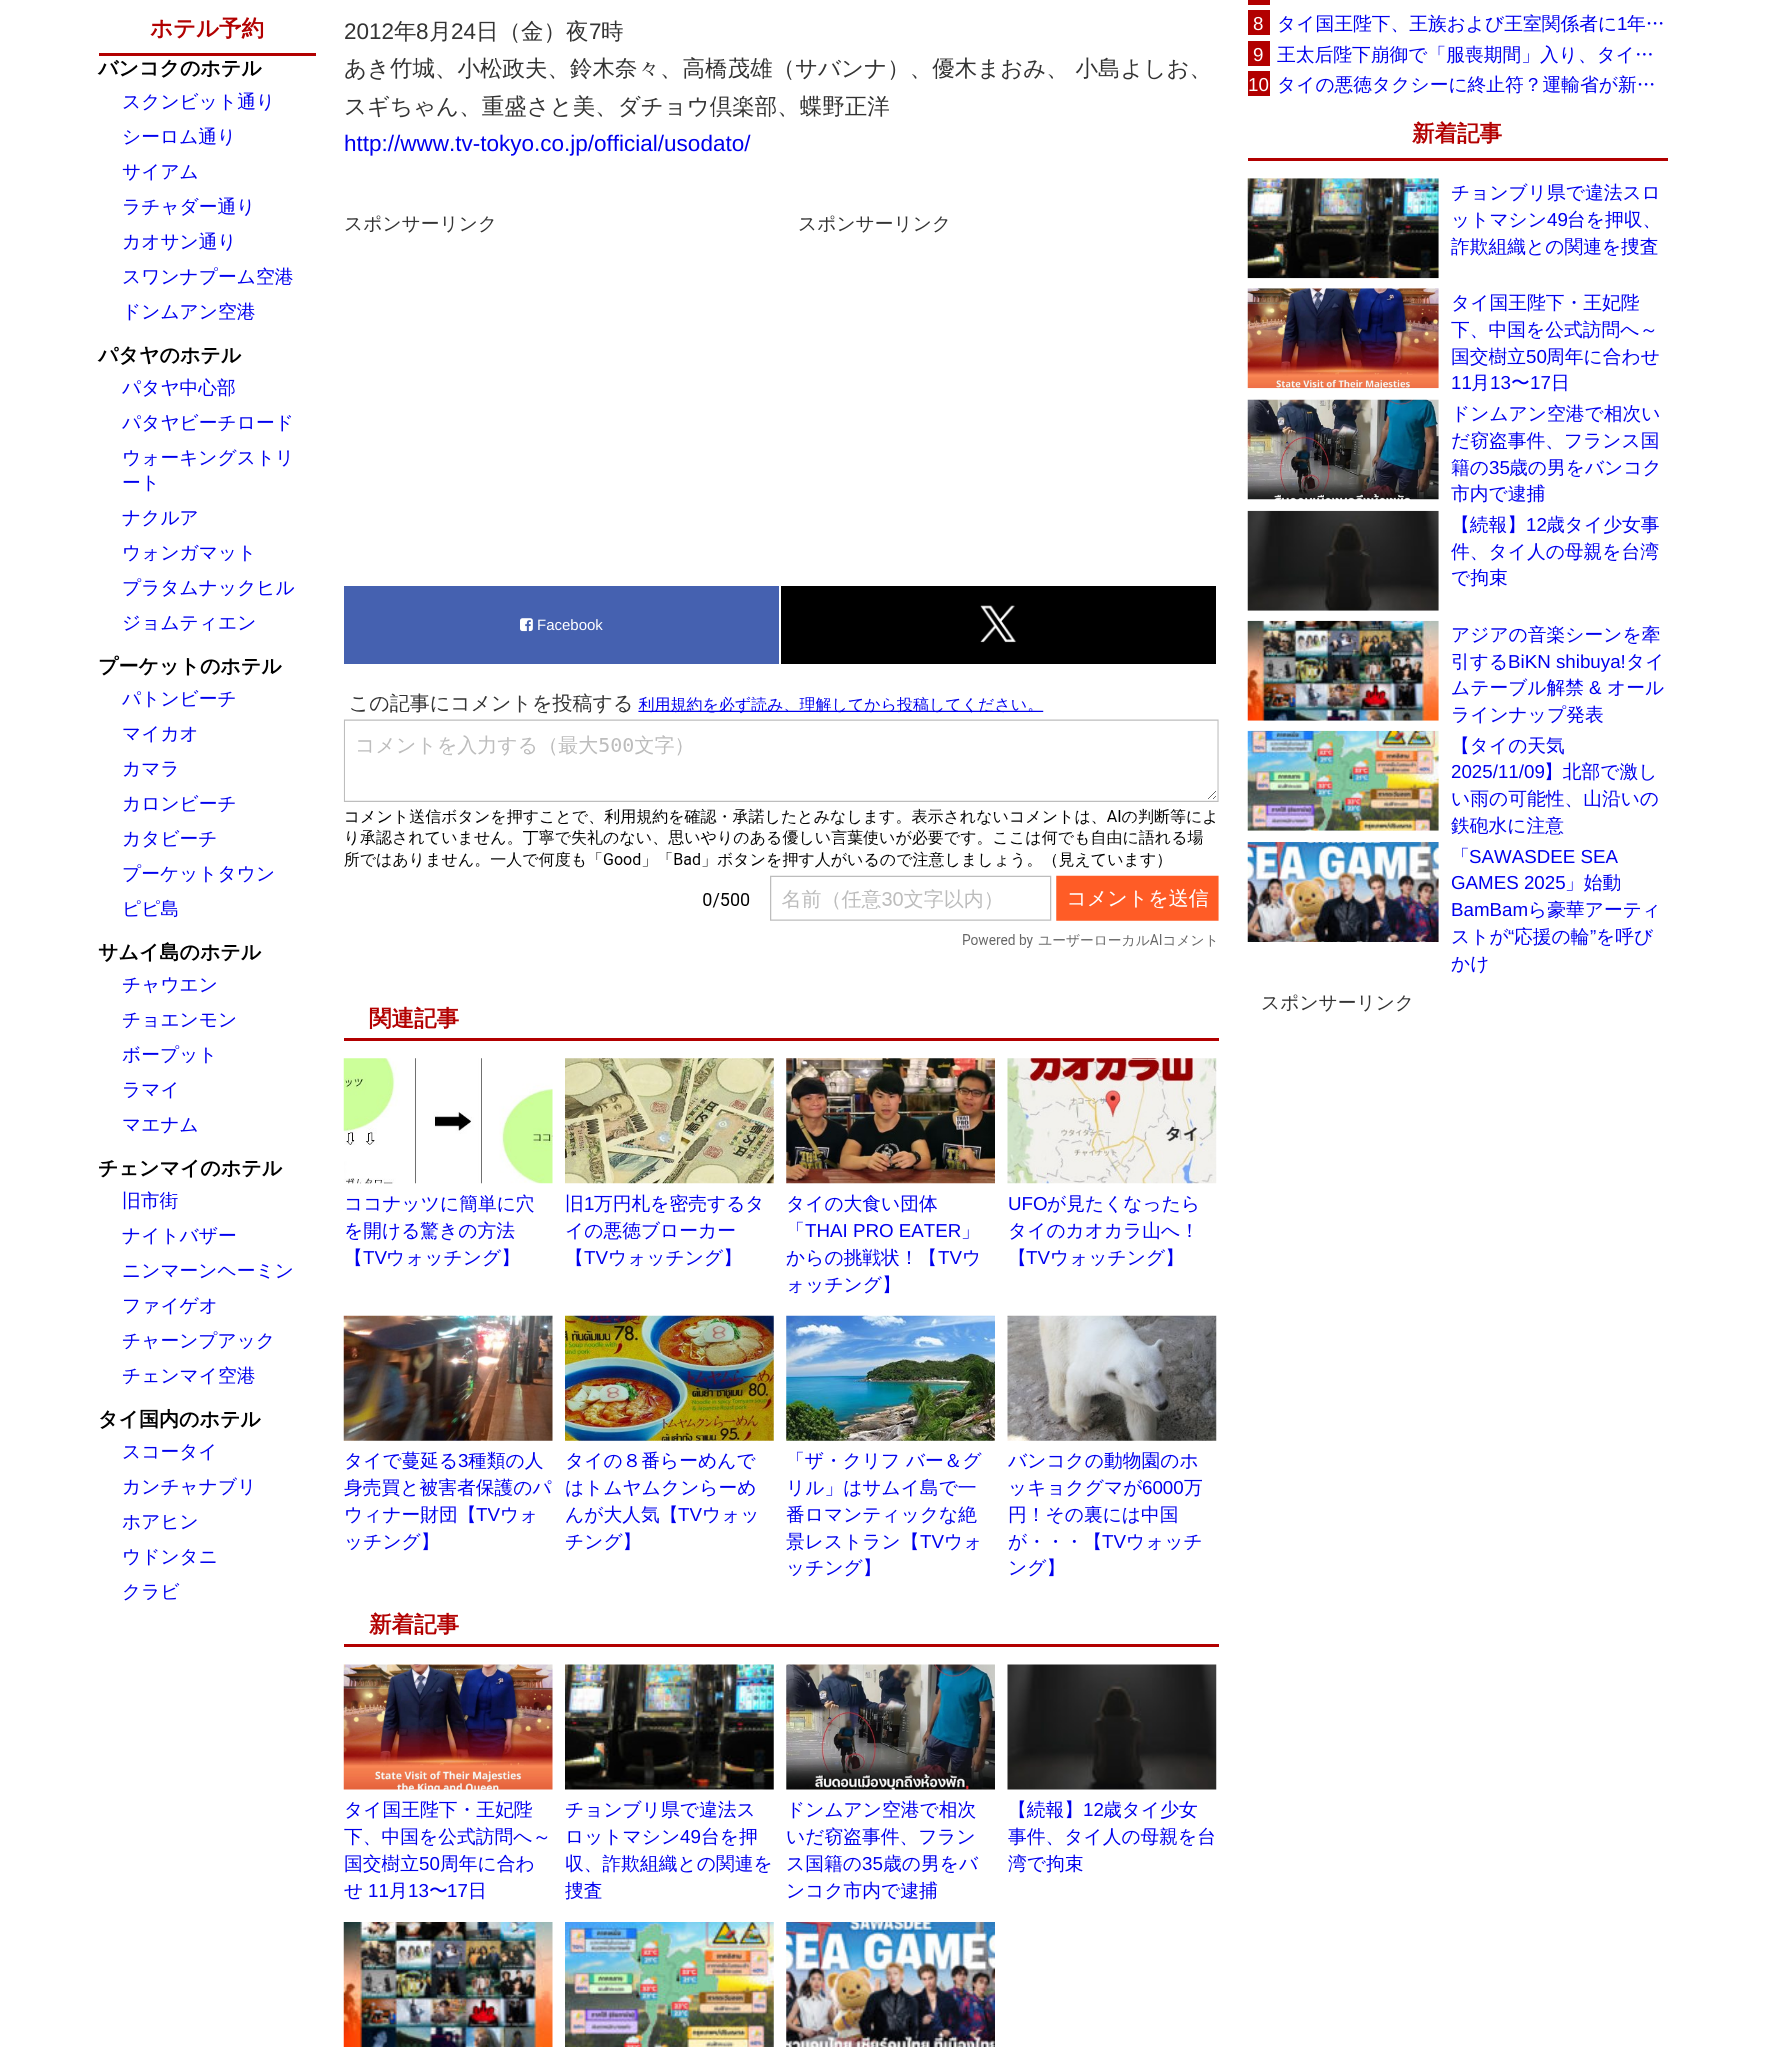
import math
import cairo

surface = cairo.ImageSurface(cairo.FORMAT_RGB24, 1765, 2062)
ctx = cairo.Context(surface)
options = cairo.FontOptions()
options.set_hint_metrics(cairo.HINT_METRICS_OFF)
options.set_hint_style(cairo.HINT_STYLE_NONE)
ctx.set_font_options(options)
ctx.set_miter_limit(4)


def set_color(code):
    ctx.set_source_rgb(*(v / 255 for v in bytes.fromhex(code[-6:])))


def draw_text(x, y, s, family, size, color, bold=False, italic=False):
    ctx.select_font_face(family, cairo.FONT_SLANT_ITALIC if italic else cairo.FONT_SLANT_NORMAL, cairo.FONT_WEIGHT_BOLD if bold else cairo.FONT_WEIGHT_NORMAL)
    ctx.set_font_size(size)
    set_color(color)
    ctx.move_to(x, y)
    ctx.show_text(s)


def fill_rect(x, y, w, h, color):
    set_color(color)
    ctx.rectangle(x, y, w, h)
    ctx.fill()


def draw_image(path, x, y, w, h):
    ctx.save()
    ctx.set_source_surface(cairo.ImageSurface.create_from_png(path), x, y)
    ctx.rectangle(x, y, w, h)
    ctx.fill()
    ctx.restore()


set_color("#ffffff")
ctx.paint()
fill_rect(99, 53, 217, 3, "#b20000")
draw_text(150, 36, "ホテル予約", "WenQuanYi Zen Hei", 22.5, "#b20000", bold=True)
draw_text(98, 75, "バンコクのホテル", "WenQuanYi Zen Hei", 20, "#000000", bold=True)
draw_text(122, 108, "スクンビット通り", "WenQuanYi Zen Hei Medium", 18.75, "#0000ee")
draw_text(122, 143, "シーロム通り", "WenQuanYi Zen Hei Medium", 18.75, "#0000ee")
draw_text(122, 178, "サイアム", "WenQuanYi Zen Hei Medium", 18.75, "#0000ee")
draw_text(122, 213, "ラチャダー通り", "WenQuanYi Zen Hei Medium", 18.75, "#0000ee")
draw_text(122, 248, "カオサン通り", "WenQuanYi Zen Hei Medium", 18.75, "#0000ee")
draw_text(122, 283, "スワンナプーム空港", "WenQuanYi Zen Hei Medium", 18.75, "#0000ee")
draw_text(122, 318, "ドンムアン空港", "WenQuanYi Zen Hei Medium", 18.75, "#0000ee")
draw_text(98, 362, "パタヤのホテル", "WenQuanYi Zen Hei", 20, "#000000", bold=True)
draw_text(122, 394, "パタヤ中心部", "WenQuanYi Zen Hei Medium", 18.75, "#0000ee")
draw_text(122, 429, "パタヤビーチロード", "WenQuanYi Zen Hei Medium", 18.75, "#0000ee")
draw_text(122, 464, "ウォーキングストリ", "WenQuanYi Zen Hei Medium", 18.75, "#0000ee")
draw_text(122, 489, "ート", "WenQuanYi Zen Hei Medium", 18.75, "#0000ee")
draw_text(122, 524, "ナクルア", "WenQuanYi Zen Hei Medium", 18.75, "#0000ee")
draw_text(122, 559, "ウォンガマット", "WenQuanYi Zen Hei Medium", 18.75, "#0000ee")
draw_text(122, 594, "プラタムナックヒル", "WenQuanYi Zen Hei Medium", 18.75, "#0000ee")
draw_text(122, 629, "ジョムティエン", "WenQuanYi Zen Hei Medium", 18.75, "#0000ee")
draw_text(98, 673, "プーケットのホテル", "WenQuanYi Zen Hei", 20, "#000000", bold=True)
draw_text(122, 705, "パトンビーチ", "WenQuanYi Zen Hei Medium", 18.75, "#0000ee")
draw_text(122, 740, "マイカオ", "WenQuanYi Zen Hei Medium", 18.75, "#0000ee")
draw_text(122, 775, "カマラ", "WenQuanYi Zen Hei Medium", 18.75, "#0000ee")
draw_text(122, 810, "カロンビーチ", "WenQuanYi Zen Hei Medium", 18.75, "#0000ee")
draw_text(122, 845, "カタビーチ", "WenQuanYi Zen Hei Medium", 18.75, "#0000ee")
draw_text(122, 880, "プーケットタウン", "WenQuanYi Zen Hei Medium", 18.75, "#0000ee")
draw_text(122, 915, "ピピ島", "WenQuanYi Zen Hei Medium", 18.75, "#0000ee")
draw_text(98, 959, "サムイ島のホテル", "WenQuanYi Zen Hei", 20, "#000000", bold=True)
draw_text(122, 991, "チャウエン", "WenQuanYi Zen Hei Medium", 18.75, "#0000ee")
draw_text(122, 1026, "チョエンモン", "WenQuanYi Zen Hei Medium", 18.75, "#0000ee")
draw_text(122, 1061, "ボープット", "WenQuanYi Zen Hei Medium", 18.75, "#0000ee")
draw_text(122, 1096, "ラマイ", "WenQuanYi Zen Hei Medium", 18.75, "#0000ee")
draw_text(122, 1131, "マエナム", "WenQuanYi Zen Hei Medium", 18.75, "#0000ee")
draw_text(98, 1175, "チェンマイのホテル", "WenQuanYi Zen Hei", 20, "#000000", bold=True)
draw_text(122, 1207, "旧市街", "WenQuanYi Zen Hei Medium", 18.75, "#0000ee")
draw_text(122, 1242, "ナイトバザー", "WenQuanYi Zen Hei Medium", 18.75, "#0000ee")
draw_text(122, 1277, "ニンマーンヘーミン", "WenQuanYi Zen Hei Medium", 18.75, "#0000ee")
draw_text(122, 1312, "ファイゲオ", "WenQuanYi Zen Hei Medium", 18.75, "#0000ee")
draw_text(122, 1347, "チャーンプアック", "WenQuanYi Zen Hei Medium", 18.75, "#0000ee")
draw_text(122, 1382, "チェンマイ空港", "WenQuanYi Zen Hei Medium", 18.75, "#0000ee")
draw_text(98, 1426, "タイ国内のホテル", "WenQuanYi Zen Hei", 20, "#000000", bold=True)
draw_text(122, 1458, "スコータイ", "WenQuanYi Zen Hei Medium", 18.75, "#0000ee")
draw_text(122, 1493, "カンチャナブリ", "WenQuanYi Zen Hei Medium", 18.75, "#0000ee")
draw_text(122, 1528, "ホアヒン", "WenQuanYi Zen Hei Medium", 18.75, "#0000ee")
draw_text(122, 1563, "ウドンタニ", "WenQuanYi Zen Hei Medium", 18.75, "#0000ee")
draw_text(122, 1598, "クラビ", "WenQuanYi Zen Hei Medium", 18.75, "#0000ee")
draw_text(344, 39, "2012", "Liberation Sans", 22.5, "#333333")
draw_text(394, 39, "年", "WenQuanYi Zen Hei Medium", 22.5, "#333333")
draw_text(416, 39, "8", "Liberation Sans", 22.5, "#333333")
draw_text(429, 39, "月", "WenQuanYi Zen Hei Medium", 22.5, "#333333")
draw_text(451, 39, "24", "Liberation Sans", 22.5, "#333333")
draw_text(476, 39, "日（金）夜", "WenQuanYi Zen Hei Medium", 22.5, "#333333")
draw_text(589, 39, "7", "Liberation Sans", 22.5, "#333333")
draw_text(601, 39, "時", "WenQuanYi Zen Hei Medium", 22.5, "#333333")
draw_text(344, 76, "あき竹城、小松政夫、鈴木奈々、高橋茂雄（サバンナ）、優木まおみ、 小島よしお、", "WenQuanYi Zen Hei Medium", 22.5, "#333333")
draw_text(344, 114, "スギちゃん、重盛さと美、ダチョウ倶楽部、蝶野正洋", "WenQuanYi Zen Hei Medium", 22.5, "#333333")
draw_text(344, 151, "http://www.tv-tokyo.co.jp/official/usodato/", "Liberation Sans", 22.5, "#0000ee")
draw_text(344, 230, "スポンサーリンク", "WenQuanYi Zen Hei Medium", 18.75, "#333333")
draw_text(798, 230, "スポンサーリンク", "WenQuanYi Zen Hei Medium", 18.75, "#333333")
fill_rect(344, 586, 435, 78, "#4561b0")
draw_image("assets/img1.png", 520, 618, 13, 14)
draw_text(537, 630, "Facebook", "Liberation Sans", 15, "#ffffff")
fill_rect(781, 586, 435, 78, "#000000")
draw_image("assets/img2.png", 980, 605, 37, 38)
draw_image("assets/img3.png", 343, 693, 876, 255)
fill_rect(344, 1038, 875, 3, "#b20000")
draw_text(369, 1026, "関連記事", "WenQuanYi Zen Hei", 22.5, "#b20000", bold=True)
draw_image("assets/img4.png", 343, 1058, 210, 126)
draw_text(344, 1210, "ココナッツに簡単に穴", "WenQuanYi Zen Hei Medium", 18.75, "#0000ee")
draw_text(344, 1237, "を開ける驚きの方法", "WenQuanYi Zen Hei Medium", 18.75, "#0000ee")
draw_text(344, 1264, "【", "WenQuanYi Zen Hei Medium", 18.75, "#0000ee")
draw_text(363, 1264, "TV", "Liberation Sans", 18.75, "#0000ee")
draw_text(386, 1264, "ウォッチング】", "WenQuanYi Zen Hei Medium", 18.75, "#0000ee")
draw_image("assets/img5.png", 565, 1058, 209, 126)
draw_text(565, 1210, "旧", "WenQuanYi Zen Hei Medium", 18.75, "#0000ee")
draw_text(584, 1210, "1", "Liberation Sans", 18.75, "#0000ee")
draw_text(594, 1210, "万円札を密売するタ", "WenQuanYi Zen Hei Medium", 18.75, "#0000ee")
draw_text(565, 1237, "イの悪徳ブローカー", "WenQuanYi Zen Hei Medium", 18.75, "#0000ee")
draw_text(565, 1264, "【", "WenQuanYi Zen Hei Medium", 18.75, "#0000ee")
draw_text(584, 1264, "TV", "Liberation Sans", 18.75, "#0000ee")
draw_text(608, 1264, "ウォッチング】", "WenQuanYi Zen Hei Medium", 18.75, "#0000ee")
draw_image("assets/img6.png", 786, 1058, 209, 126)
draw_text(786, 1210, "タイの大食い団体", "WenQuanYi Zen Hei Medium", 18.75, "#0000ee")
draw_text(786, 1237, "「", "WenQuanYi Zen Hei Medium", 18.75, "#0000ee")
draw_text(805, 1237, "THAI PRO EATER", "Liberation Sans", 18.75, "#0000ee")
draw_text(961, 1237, "」", "WenQuanYi Zen Hei Medium", 18.75, "#0000ee")
draw_text(786, 1264, "からの挑戦状！【", "WenQuanYi Zen Hei Medium", 18.75, "#0000ee")
draw_text(938, 1264, "TV", "Liberation Sans", 18.75, "#0000ee")
draw_text(962, 1264, "ウ", "WenQuanYi Zen Hei Medium", 18.75, "#0000ee")
draw_text(786, 1291, "ォッチング】", "WenQuanYi Zen Hei Medium", 18.75, "#0000ee")
draw_image("assets/img7.png", 1007, 1058, 210, 126)
draw_text(1008, 1210, "UFO", "Liberation Sans", 18.75, "#0000ee")
draw_text(1047, 1210, "が見たくなったら", "WenQuanYi Zen Hei Medium", 18.75, "#0000ee")
draw_text(1008, 1237, "タイのカオカラ山へ！", "WenQuanYi Zen Hei Medium", 18.75, "#0000ee")
draw_text(1008, 1264, "【", "WenQuanYi Zen Hei Medium", 18.75, "#0000ee")
draw_text(1026, 1264, "TV", "Liberation Sans", 18.75, "#0000ee")
draw_text(1050, 1264, "ウォッチング】", "WenQuanYi Zen Hei Medium", 18.75, "#0000ee")
draw_image("assets/img8.png", 343, 1315, 210, 126)
draw_text(344, 1467, "タイで蔓延る", "WenQuanYi Zen Hei Medium", 18.75, "#0000ee")
draw_text(458, 1467, "3", "Liberation Sans", 18.75, "#0000ee")
draw_text(468, 1467, "種類の人", "WenQuanYi Zen Hei Medium", 18.75, "#0000ee")
draw_text(344, 1494, "身売買と被害者保護のパ", "WenQuanYi Zen Hei Medium", 18.75, "#0000ee")
draw_text(344, 1521, "ウィナー財団【", "WenQuanYi Zen Hei Medium", 18.75, "#0000ee")
draw_text(476, 1521, "TV", "Liberation Sans", 18.75, "#0000ee")
draw_text(500, 1521, "ウォ", "WenQuanYi Zen Hei Medium", 18.75, "#0000ee")
draw_text(344, 1548, "ッチング】", "WenQuanYi Zen Hei Medium", 18.75, "#0000ee")
draw_image("assets/img9.png", 565, 1315, 209, 126)
draw_text(565, 1467, "タイの８番らーめんで", "WenQuanYi Zen Hei Medium", 18.75, "#0000ee")
draw_text(565, 1494, "はトムヤムクンらーめ", "WenQuanYi Zen Hei Medium", 18.75, "#0000ee")
draw_text(565, 1521, "んが大人気【", "WenQuanYi Zen Hei Medium", 18.75, "#0000ee")
draw_text(678, 1521, "TV", "Liberation Sans", 18.75, "#0000ee")
draw_text(702, 1521, "ウォッ", "WenQuanYi Zen Hei Medium", 18.75, "#0000ee")
draw_text(565, 1548, "チング】", "WenQuanYi Zen Hei Medium", 18.75, "#0000ee")
draw_image("assets/img10.png", 786, 1315, 209, 126)
draw_text(786, 1467, "「ザ・クリフ バー＆グ", "WenQuanYi Zen Hei Medium", 18.75, "#0000ee")
draw_text(786, 1494, "リル」はサムイ島で一", "WenQuanYi Zen Hei Medium", 18.75, "#0000ee")
draw_text(786, 1521, "番ロマンティックな絶", "WenQuanYi Zen Hei Medium", 18.75, "#0000ee")
draw_text(786, 1548, "景レストラン【", "WenQuanYi Zen Hei Medium", 18.75, "#0000ee")
draw_text(920, 1548, "TV", "Liberation Sans", 18.75, "#0000ee")
draw_text(944, 1548, "ウォ", "WenQuanYi Zen Hei Medium", 18.75, "#0000ee")
draw_text(786, 1574, "ッチング】", "WenQuanYi Zen Hei Medium", 18.75, "#0000ee")
draw_image("assets/img11.png", 1007, 1315, 210, 126)
draw_text(1008, 1467, "バンコクの動物園のホ", "WenQuanYi Zen Hei Medium", 18.75, "#0000ee")
draw_text(1008, 1494, "ッキョクグマが", "WenQuanYi Zen Hei Medium", 18.75, "#0000ee")
draw_text(1142, 1494, "6000", "Liberation Sans", 18.75, "#0000ee")
draw_text(1184, 1494, "万", "WenQuanYi Zen Hei Medium", 18.75, "#0000ee")
draw_text(1008, 1521, "円！その裏には中国", "WenQuanYi Zen Hei Medium", 18.75, "#0000ee")
draw_text(1008, 1548, "が・・・【", "WenQuanYi Zen Hei Medium", 18.75, "#0000ee")
draw_text(1102, 1548, "TV", "Liberation Sans", 18.75, "#0000ee")
draw_text(1126, 1548, "ウォッチ", "WenQuanYi Zen Hei Medium", 18.75, "#0000ee")
draw_text(1008, 1574, "ング】", "WenQuanYi Zen Hei Medium", 18.75, "#0000ee")
fill_rect(344, 1644, 875, 3, "#b20000")
draw_text(369, 1632, "新着記事", "WenQuanYi Zen Hei", 22.5, "#b20000", bold=True)
draw_image("assets/img12.png", 343, 1664, 210, 126)
draw_text(344, 1816, "タイ国王陛下・王妃陛", "WenQuanYi Zen Hei Medium", 18.75, "#0000ee")
draw_text(344, 1843, "下、中国を公式訪問へ～", "WenQuanYi Zen Hei Medium", 18.75, "#0000ee")
draw_text(344, 1870, "国交樹立", "WenQuanYi Zen Hei Medium", 18.75, "#0000ee")
draw_text(419, 1870, "50", "Liberation Sans", 18.75, "#0000ee")
draw_text(440, 1870, "周年に合わ", "WenQuanYi Zen Hei Medium", 18.75, "#0000ee")
draw_text(344, 1897, "せ", "WenQuanYi Zen Hei Medium", 18.75, "#0000ee")
draw_text(368, 1897, "11", "Liberation Sans", 18.75, "#0000ee")
draw_text(389, 1897, "月", "WenQuanYi Zen Hei Medium", 18.75, "#0000ee")
draw_text(408, 1897, "13", "Liberation Sans", 18.75, "#0000ee")
draw_text(429, 1897, "〜", "WenQuanYi Zen Hei Medium", 18.75, "#0000ee")
draw_text(447, 1897, "17", "Liberation Sans", 18.75, "#0000ee")
draw_text(468, 1897, "日", "WenQuanYi Zen Hei Medium", 18.75, "#0000ee")
draw_image("assets/img13.png", 565, 1664, 209, 126)
draw_text(565, 1816, "チョンブリ県で違法ス", "WenQuanYi Zen Hei Medium", 18.75, "#0000ee")
draw_text(565, 1843, "ロットマシン", "WenQuanYi Zen Hei Medium", 18.75, "#0000ee")
draw_text(680, 1843, "49", "Liberation Sans", 18.75, "#0000ee")
draw_text(701, 1843, "台を押", "WenQuanYi Zen Hei Medium", 18.75, "#0000ee")
draw_text(565, 1870, "収、詐欺組織との関連を", "WenQuanYi Zen Hei Medium", 18.75, "#0000ee")
draw_text(565, 1897, "捜査", "WenQuanYi Zen Hei Medium", 18.75, "#0000ee")
draw_image("assets/img14.png", 786, 1664, 209, 126)
draw_text(786, 1816, "ドンムアン空港で相次", "WenQuanYi Zen Hei Medium", 18.75, "#0000ee")
draw_text(786, 1843, "いだ窃盗事件、フラン", "WenQuanYi Zen Hei Medium", 18.75, "#0000ee")
draw_text(786, 1870, "ス国籍の", "WenQuanYi Zen Hei Medium", 18.75, "#0000ee")
draw_text(862, 1870, "35", "Liberation Sans", 18.75, "#0000ee")
draw_text(883, 1870, "歳の男をバ", "WenQuanYi Zen Hei Medium", 18.75, "#0000ee")
draw_text(786, 1897, "ンコク市内で逮捕", "WenQuanYi Zen Hei Medium", 18.75, "#0000ee")
draw_image("assets/img15.png", 1007, 1664, 210, 126)
draw_text(1008, 1816, "【続報】", "WenQuanYi Zen Hei Medium", 18.75, "#0000ee")
draw_text(1083, 1816, "12", "Liberation Sans", 18.75, "#0000ee")
draw_text(1103, 1816, "歳タイ少女", "WenQuanYi Zen Hei Medium", 18.75, "#0000ee")
draw_text(1008, 1843, "事件、タイ人の母親を台", "WenQuanYi Zen Hei Medium", 18.75, "#0000ee")
draw_text(1008, 1870, "湾で拘束", "WenQuanYi Zen Hei Medium", 18.75, "#0000ee")
draw_image("assets/img16.png", 343, 1922, 210, 125)
draw_image("assets/img17.png", 565, 1922, 209, 125)
draw_image("assets/img18.png", 786, 1922, 209, 125)
fill_rect(1248, 0, 22, 5, "#b20000")
fill_rect(1248, 10, 22, 25, "#b20000")
draw_text(1253, 30, "8", "Liberation Sans", 18.75, "#ffffff")
draw_text(1277, 30, "タイ国王陛下、王族および王室関係者に", "WenQuanYi Zen Hei Medium", 18.75, "#0000ee")
draw_text(1617, 30, "1", "Liberation Sans", 18.75, "#0000ee")
draw_text(1627, 30, "年…", "WenQuanYi Zen Hei Medium", 18.75, "#0000ee")
fill_rect(1248, 41, 22, 25, "#b20000")
draw_text(1253, 61, "9", "Liberation Sans", 18.75, "#ffffff")
draw_text(1277, 61, "王太后陛下崩御で「服喪期間」入り、タイ…", "WenQuanYi Zen Hei Medium", 18.75, "#0000ee")
fill_rect(1248, 71, 22, 25, "#b20000")
draw_text(1248, 91, "10", "Liberation Sans", 18.75, "#ffffff")
draw_text(1277, 91, "タイの悪徳タクシーに終止符？運輸省が新…", "WenQuanYi Zen Hei Medium", 18.75, "#0000ee")
fill_rect(1248, 158, 420, 3, "#b20000")
draw_text(1412, 141, "新着記事", "WenQuanYi Zen Hei", 22.5, "#b20000", bold=True)
draw_image("assets/img19.png", 1247, 178, 192, 101)
draw_text(1451, 199, "チョンブリ県で違法スロ", "WenQuanYi Zen Hei Medium", 18.75, "#0000ee")
draw_text(1451, 226, "ットマシン", "WenQuanYi Zen Hei Medium", 18.75, "#0000ee")
draw_text(1547, 226, "49", "Liberation Sans", 18.75, "#0000ee")
draw_text(1567, 226, "台を押収、", "WenQuanYi Zen Hei Medium", 18.75, "#0000ee")
draw_text(1451, 253, "詐欺組織との関連を捜査", "WenQuanYi Zen Hei Medium", 18.75, "#0000ee")
draw_image("assets/img20.png", 1247, 288, 192, 101)
draw_text(1451, 309, "タイ国王陛下・王妃陛", "WenQuanYi Zen Hei Medium", 18.75, "#0000ee")
draw_text(1451, 336, "下、中国を公式訪問へ～", "WenQuanYi Zen Hei Medium", 18.75, "#0000ee")
draw_text(1451, 363, "国交樹立", "WenQuanYi Zen Hei Medium", 18.75, "#0000ee")
draw_text(1526, 363, "50", "Liberation Sans", 18.75, "#0000ee")
draw_text(1546, 363, "周年に合わせ", "WenQuanYi Zen Hei Medium", 18.75, "#0000ee")
draw_text(1451, 389, "11", "Liberation Sans", 18.75, "#0000ee")
draw_text(1471, 389, "月", "WenQuanYi Zen Hei Medium", 18.75, "#0000ee")
draw_text(1490, 389, "13", "Liberation Sans", 18.75, "#0000ee")
draw_text(1511, 389, "〜", "WenQuanYi Zen Hei Medium", 18.75, "#0000ee")
draw_text(1530, 389, "17", "Liberation Sans", 18.75, "#0000ee")
draw_text(1551, 389, "日", "WenQuanYi Zen Hei Medium", 18.75, "#0000ee")
draw_image("assets/img21.png", 1247, 399, 192, 101)
draw_text(1451, 420, "ドンムアン空港で相次い", "WenQuanYi Zen Hei Medium", 18.75, "#0000ee")
draw_text(1451, 447, "だ窃盗事件、フランス国", "WenQuanYi Zen Hei Medium", 18.75, "#0000ee")
draw_text(1451, 474, "籍の", "WenQuanYi Zen Hei Medium", 18.75, "#0000ee")
draw_text(1489, 474, "35", "Liberation Sans", 18.75, "#0000ee")
draw_text(1509, 474, "歳の男をバンコク", "WenQuanYi Zen Hei Medium", 18.75, "#0000ee")
draw_text(1451, 500, "市内で逮捕", "WenQuanYi Zen Hei Medium", 18.75, "#0000ee")
draw_image("assets/img22.png", 1247, 510, 192, 101)
draw_text(1451, 531, "【続報】", "WenQuanYi Zen Hei Medium", 18.75, "#0000ee")
draw_text(1526, 531, "12", "Liberation Sans", 18.75, "#0000ee")
draw_text(1546, 531, "歳タイ少女事", "WenQuanYi Zen Hei Medium", 18.75, "#0000ee")
draw_text(1451, 558, "件、タイ人の母親を台湾", "WenQuanYi Zen Hei Medium", 18.75, "#0000ee")
draw_text(1451, 584, "で拘束", "WenQuanYi Zen Hei Medium", 18.75, "#0000ee")
draw_image("assets/img23.png", 1247, 620, 192, 101)
draw_text(1451, 641, "アジアの音楽シーンを牽", "WenQuanYi Zen Hei Medium", 18.75, "#0000ee")
draw_text(1451, 668, "引する", "WenQuanYi Zen Hei Medium", 18.75, "#0000ee")
draw_text(1508, 668, "BiKN shibuya!", "Liberation Sans", 18.75, "#0000ee")
draw_text(1626, 668, "タイ", "WenQuanYi Zen Hei Medium", 18.75, "#0000ee")
draw_text(1451, 694, "ムテーブル解禁", "WenQuanYi Zen Hei Medium", 18.75, "#0000ee")
draw_text(1589, 694, "&", "Liberation Sans", 18.75, "#0000ee")
draw_text(1607, 694, "オール", "WenQuanYi Zen Hei Medium", 18.75, "#0000ee")
draw_text(1451, 721, "ラインナップ発表", "WenQuanYi Zen Hei Medium", 18.75, "#0000ee")
draw_image("assets/img24.png", 1247, 730, 192, 101)
draw_text(1451, 752, "【タイの天気", "WenQuanYi Zen Hei Medium", 18.75, "#0000ee")
draw_text(1451, 778, "2025/11/09", "Liberation Sans", 18.75, "#0000ee")
draw_text(1544, 778, "】北部で激し", "WenQuanYi Zen Hei Medium", 18.75, "#0000ee")
draw_text(1451, 805, "い雨の可能性、山沿いの", "WenQuanYi Zen Hei Medium", 18.75, "#0000ee")
draw_text(1451, 832, "鉄砲水に注意", "WenQuanYi Zen Hei Medium", 18.75, "#0000ee")
draw_image("assets/img25.png", 1247, 842, 192, 100)
draw_text(1451, 863, "「", "WenQuanYi Zen Hei Medium", 18.75, "#0000ee")
draw_text(1469, 863, "SAWASDEE SEA", "Liberation Sans", 18.75, "#0000ee")
draw_text(1451, 889, "GAMES 2025", "Liberation Sans", 18.75, "#0000ee")
draw_text(1565, 889, "」始動", "WenQuanYi Zen Hei Medium", 18.75, "#0000ee")
draw_text(1451, 916, "BamBam", "Liberation Sans", 18.75, "#0000ee")
draw_text(1528, 916, "ら豪華アーティ", "WenQuanYi Zen Hei Medium", 18.75, "#0000ee")
draw_text(1451, 943, "ストが", "WenQuanYi Zen Hei Medium", 18.75, "#0000ee")
draw_text(1508, 943, "“", "Liberation Sans", 18.75, "#0000ee")
draw_text(1514, 943, "応援の輪", "WenQuanYi Zen Hei Medium", 18.75, "#0000ee")
draw_text(1590, 943, "”", "Liberation Sans", 18.75, "#0000ee")
draw_text(1596, 943, "を呼び", "WenQuanYi Zen Hei Medium", 18.75, "#0000ee")
draw_text(1451, 970, "かけ", "WenQuanYi Zen Hei Medium", 18.75, "#0000ee")
draw_text(1261, 1009, "スポンサーリンク", "WenQuanYi Zen Hei Medium", 18.75, "#333333")
surface.write_to_png("output.png")
